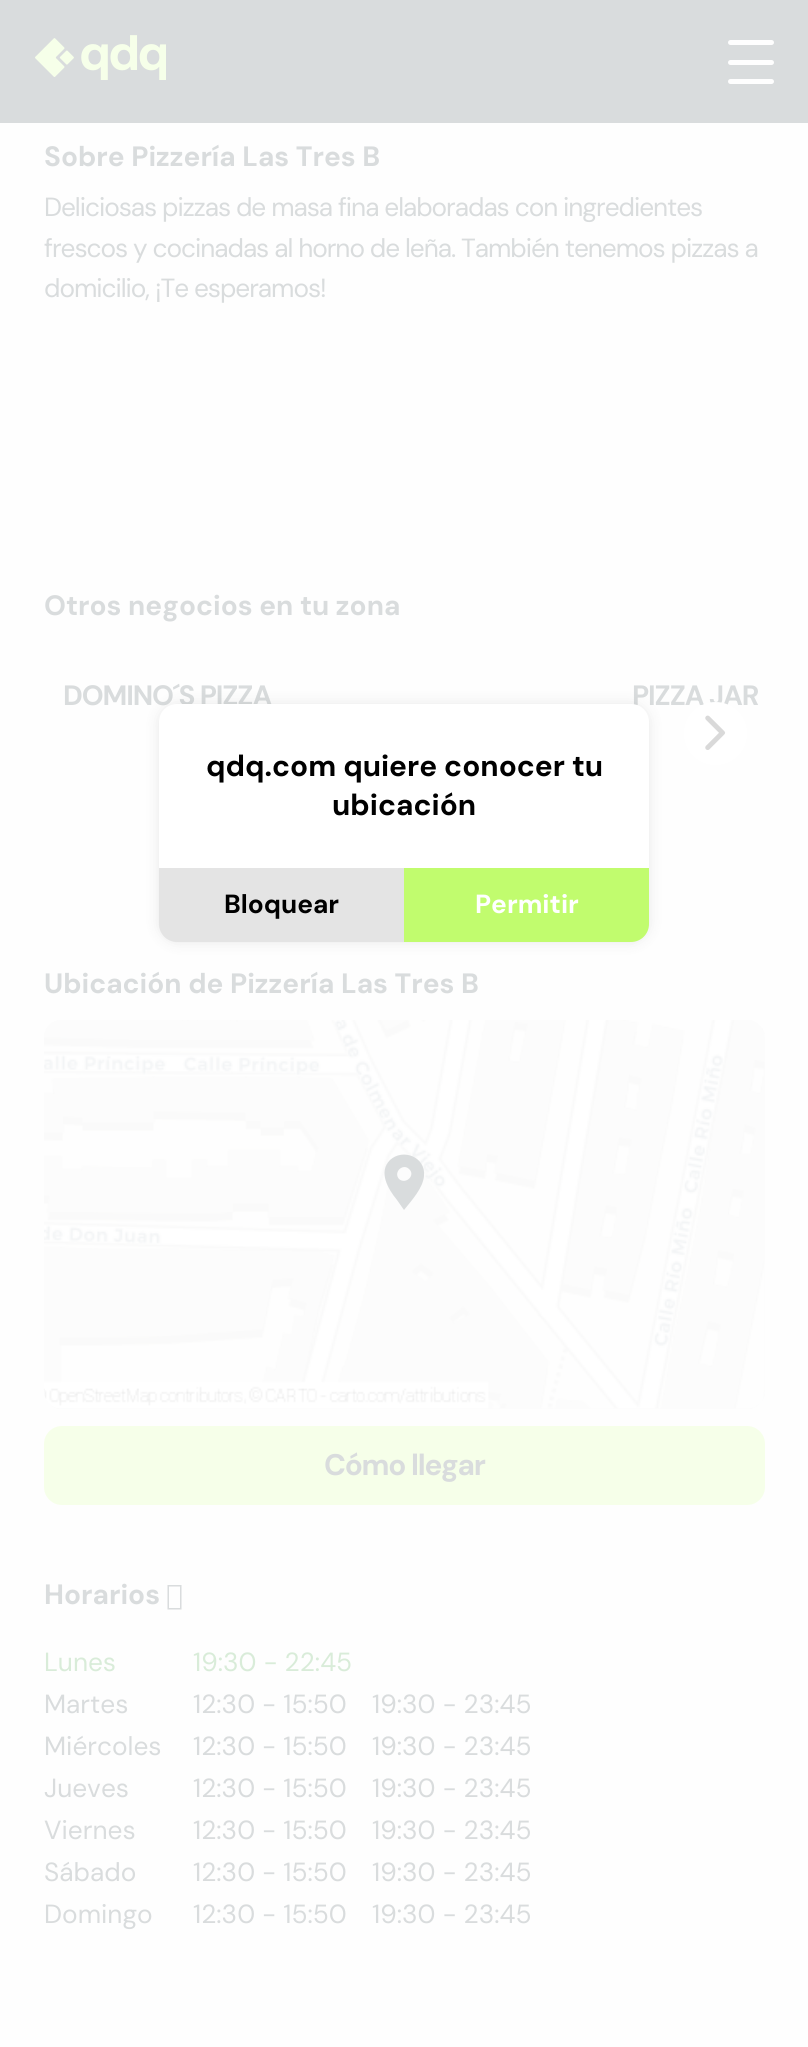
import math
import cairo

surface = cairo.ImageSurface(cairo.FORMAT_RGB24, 808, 2047)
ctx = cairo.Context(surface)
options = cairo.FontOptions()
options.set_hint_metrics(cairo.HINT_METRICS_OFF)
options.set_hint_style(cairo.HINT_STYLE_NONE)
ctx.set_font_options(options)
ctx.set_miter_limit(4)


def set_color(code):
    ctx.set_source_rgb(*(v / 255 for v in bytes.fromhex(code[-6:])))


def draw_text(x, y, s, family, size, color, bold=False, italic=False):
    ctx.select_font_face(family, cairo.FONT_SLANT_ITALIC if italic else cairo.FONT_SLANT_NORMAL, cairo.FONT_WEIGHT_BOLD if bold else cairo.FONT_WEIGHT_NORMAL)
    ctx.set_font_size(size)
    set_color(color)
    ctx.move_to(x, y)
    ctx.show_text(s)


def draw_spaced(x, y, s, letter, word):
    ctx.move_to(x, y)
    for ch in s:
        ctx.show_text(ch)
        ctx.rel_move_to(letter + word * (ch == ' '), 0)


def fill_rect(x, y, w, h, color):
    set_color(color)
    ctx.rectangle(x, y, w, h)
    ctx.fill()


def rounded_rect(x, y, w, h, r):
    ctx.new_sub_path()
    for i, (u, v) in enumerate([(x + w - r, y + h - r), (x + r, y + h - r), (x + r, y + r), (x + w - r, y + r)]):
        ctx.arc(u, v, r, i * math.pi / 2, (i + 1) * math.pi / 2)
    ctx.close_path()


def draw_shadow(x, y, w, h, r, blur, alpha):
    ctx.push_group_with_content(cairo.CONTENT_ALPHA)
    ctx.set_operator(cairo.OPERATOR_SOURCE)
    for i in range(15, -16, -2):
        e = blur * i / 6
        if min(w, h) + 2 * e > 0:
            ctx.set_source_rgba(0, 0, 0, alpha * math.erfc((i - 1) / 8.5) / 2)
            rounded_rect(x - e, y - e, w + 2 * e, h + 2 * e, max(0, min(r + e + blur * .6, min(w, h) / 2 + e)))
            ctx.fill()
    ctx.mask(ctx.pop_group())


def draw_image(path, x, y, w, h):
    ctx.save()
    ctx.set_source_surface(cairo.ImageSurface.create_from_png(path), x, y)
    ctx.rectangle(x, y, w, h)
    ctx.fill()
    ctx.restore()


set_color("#fefefe")
ctx.paint()
fill_rect(0, 0, 808, 123, "#d9dcdd")
draw_image("assets/img1.png", 35, 35, 131, 45)
set_color("#fefefe")
rounded_rect(728, 40, 46, 5, 2.5)
ctx.fill()
rounded_rect(728, 60, 46, 5, 2.5)
ctx.fill()
rounded_rect(728, 79, 46, 5, 2.5)
ctx.fill()
draw_text(44, 166, "Sobre Pizzería Las Tres B", "DM Sans", 28, "#d9dcdd", bold=True)
ctx.select_font_face("DM Sans")
ctx.set_font_size(26.25)
draw_spaced(44, 216, "Deliciosas pizzas de masa fina elaboradas con ingredientes", -1.05, 0)
draw_spaced(44, 257, "frescos y cocinadas al horno de leña. También tenemos pizzas a", -1.05, 0)
draw_spaced(44, 297, "domicilio, ¡Te esperamos!", -1.05, 0)
draw_text(44, 615, "Otros negocios en tu zona", "DM Sans", 28, "#d9dcdd", bold=True)
draw_spaced(63, 705, "DOMINO´S PIZZA", -1.1, 0)
draw_spaced(632, 705, "PIZZA JAR", -1.1, 0)
set_color("#ffffff")
ctx.new_path()
ctx.arc(715.5, 733.5, 31.5, 0, 2 * math.pi)
ctx.fill()
draw_image("assets/img2.png", 705, 715, 21, 35)
draw_text(44, 993, "Ubicación de Pizzería Las Tres B", "DM Sans", 28, "#d9dcdd", bold=True)
set_color("#fbfbfb")
rounded_rect(44, 1020, 721, 389, 18)
ctx.fill()
draw_image("assets/img3.png", 44, 1020, 721, 389)
draw_image("assets/img4.png", 43, 1020, 722, 389)
set_color("#d9dcdd")
ctx.new_path()
ctx.move_to(390, 1160)
ctx.curve_to(403, 1148, 426, 1157, 424, 1176)
ctx.curve_to(423, 1188, 412, 1200, 404, 1210)
ctx.line_to(397, 1200)
ctx.curve_to(388, 1189, 378, 1172, 390, 1160)
ctx.close_path()
ctx.move_to(399, 1179)
ctx.curve_to(406, 1185, 416, 1175, 409, 1169)
ctx.curve_to(403, 1163, 393, 1172, 399, 1179)
ctx.close_path()
ctx.fill()
set_color("#f6ffe9")
rounded_rect(44, 1426, 721, 79, 18)
ctx.fill()
ctx.set_font_size(29.75)
set_color("#d9dcdd")
draw_spaced(324, 1475, "Cómo llegar", -1.25, 0)
draw_text(44, 1604, "Horarios", "DM Sans", 28, "#d9dcdd", bold=True)
ctx.new_path()
ctx.move_to(167.5, 1609.5)
ctx.line_to(167.5, 1585)
ctx.line_to(181.5, 1585)
ctx.line_to(181.5, 1609.5)
ctx.close_path()
ctx.move_to(169, 1608)
ctx.line_to(180, 1608)
ctx.line_to(180, 1586.5)
ctx.line_to(169, 1586.5)
ctx.close_path()
ctx.fill()
draw_text(44, 1671, "Lunes", "DM Sans", 26.25, "#d9ecd9")
draw_text(193, 1671, "19:30 - 22:45", "DM Sans", 26.25, "#d9ecd9")
draw_text(44, 1713, "Martes", "DM Sans", 26.25, "#d9dcdd")
draw_text(193, 1713, "12:30 - 15:50", "DM Sans", 26.25, "#d9dcdd")
draw_text(372, 1713, "19:30 - 23:45", "DM Sans", 26.25, "#d9dcdd")
draw_text(44, 1755, "Miércoles", "DM Sans", 26.25, "#d9dcdd")
draw_text(193, 1755, "12:30 - 15:50", "DM Sans", 26.25, "#d9dcdd")
draw_text(372, 1755, "19:30 - 23:45", "DM Sans", 26.25, "#d9dcdd")
draw_text(44, 1797, "Jueves", "DM Sans", 26.25, "#d9dcdd")
draw_text(193, 1797, "12:30 - 15:50", "DM Sans", 26.25, "#d9dcdd")
draw_text(372, 1797, "19:30 - 23:45", "DM Sans", 26.25, "#d9dcdd")
draw_text(44, 1839, "Viernes", "DM Sans", 26.25, "#d9dcdd")
draw_text(193, 1839, "12:30 - 15:50", "DM Sans", 26.25, "#d9dcdd")
draw_text(372, 1839, "19:30 - 23:45", "DM Sans", 26.25, "#d9dcdd")
draw_text(44, 1881, "Sábado", "DM Sans", 26.25, "#d9dcdd")
draw_text(193, 1881, "12:30 - 15:50", "DM Sans", 26.25, "#d9dcdd")
draw_text(372, 1881, "19:30 - 23:45", "DM Sans", 26.25, "#d9dcdd")
draw_text(44, 1923, "Domingo", "DM Sans", 26.25, "#d9dcdd")
draw_text(193, 1923, "12:30 - 15:50", "DM Sans", 26.25, "#d9dcdd")
draw_text(372, 1923, "19:30 - 23:45", "DM Sans", 26.25, "#d9dcdd")
set_color("#000000")
draw_shadow(159, 704, 490, 238, 18, 7, 0.09)
set_color("#ffffff")
ctx.new_path()
ctx.move_to(177, 704)
ctx.line_to(631, 704)
ctx.curve_to(641, 704, 649, 712, 649, 722)
ctx.line_to(649, 868)
ctx.line_to(159, 868)
ctx.line_to(159, 722)
ctx.curve_to(159, 712, 167, 704, 177, 704)
ctx.close_path()
ctx.fill()
draw_text(206, 776, "qdq.com quiere conocer tu", "DM Sans", 29.75, "#000000", bold=True)
draw_text(332, 815, "ubicación", "DM Sans", 29.75, "#000000", bold=True)
set_color("#e4e4e4")
ctx.new_path()
ctx.move_to(159, 868)
ctx.line_to(404, 868)
ctx.line_to(404, 942)
ctx.line_to(177, 942)
ctx.curve_to(167, 942, 159, 934, 159, 924)
ctx.close_path()
ctx.fill()
draw_text(224, 913, "Bloquear", "DM Sans", 26.25, "#000000", bold=True)
set_color("#c1fc6e")
ctx.new_path()
ctx.move_to(404, 868)
ctx.line_to(649, 868)
ctx.line_to(649, 924)
ctx.curve_to(649, 934, 641, 942, 631, 942)
ctx.line_to(404, 942)
ctx.close_path()
ctx.fill()
draw_text(475, 913, "Permitir", "DM Sans", 26.25, "#ffffff", bold=True)
surface.write_to_png("output.png")
